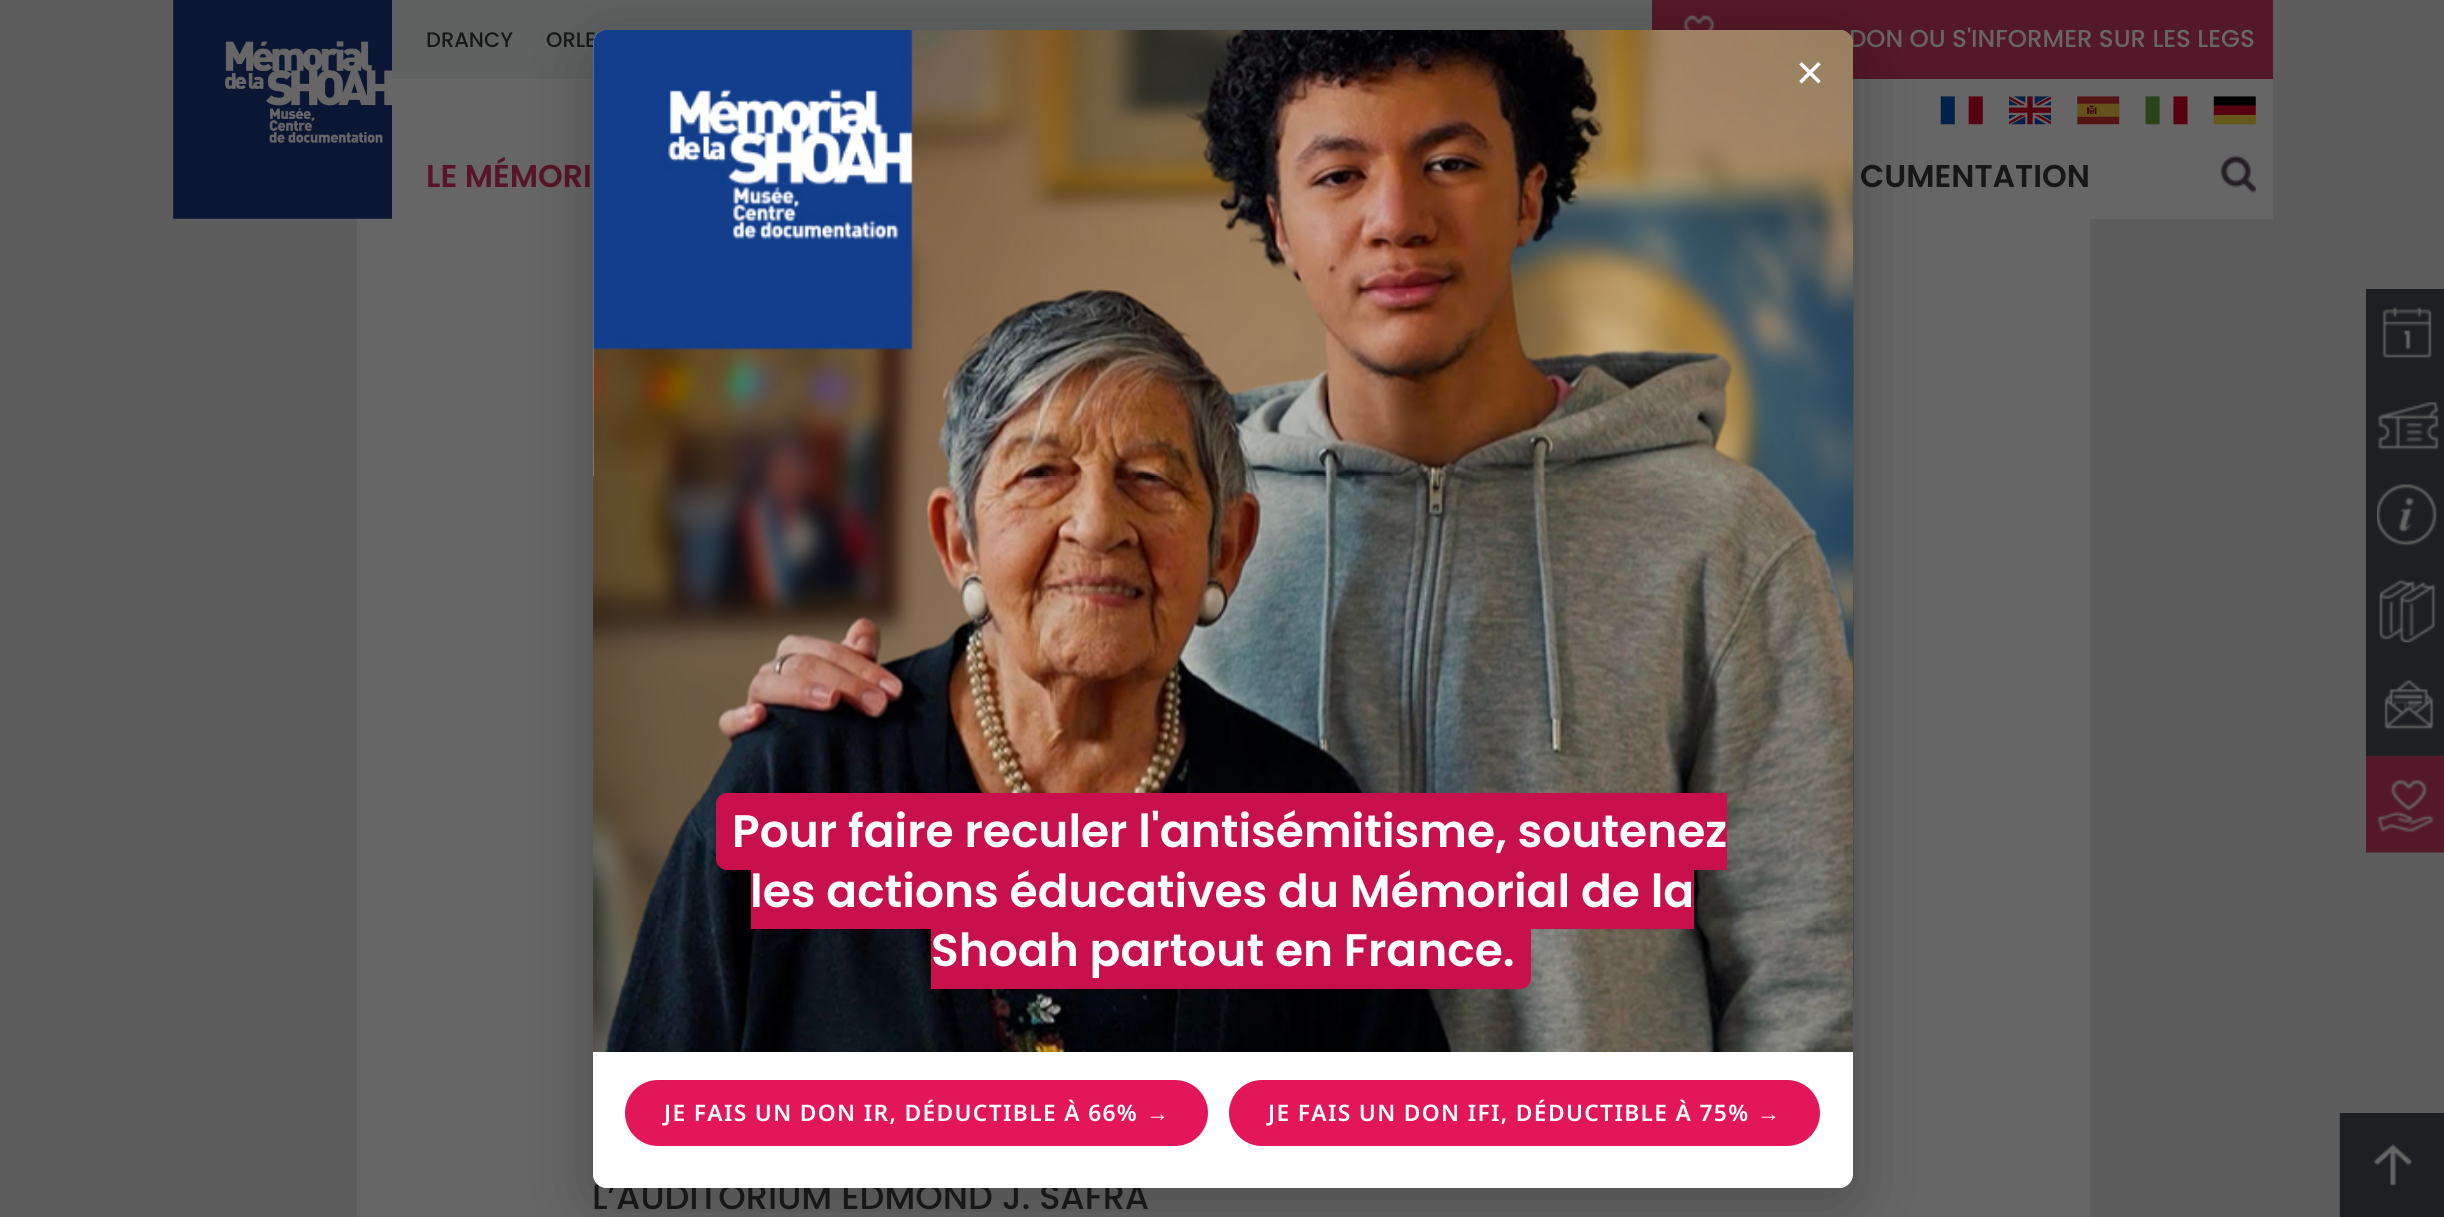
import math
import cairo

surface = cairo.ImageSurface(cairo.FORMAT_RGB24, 2444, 1217)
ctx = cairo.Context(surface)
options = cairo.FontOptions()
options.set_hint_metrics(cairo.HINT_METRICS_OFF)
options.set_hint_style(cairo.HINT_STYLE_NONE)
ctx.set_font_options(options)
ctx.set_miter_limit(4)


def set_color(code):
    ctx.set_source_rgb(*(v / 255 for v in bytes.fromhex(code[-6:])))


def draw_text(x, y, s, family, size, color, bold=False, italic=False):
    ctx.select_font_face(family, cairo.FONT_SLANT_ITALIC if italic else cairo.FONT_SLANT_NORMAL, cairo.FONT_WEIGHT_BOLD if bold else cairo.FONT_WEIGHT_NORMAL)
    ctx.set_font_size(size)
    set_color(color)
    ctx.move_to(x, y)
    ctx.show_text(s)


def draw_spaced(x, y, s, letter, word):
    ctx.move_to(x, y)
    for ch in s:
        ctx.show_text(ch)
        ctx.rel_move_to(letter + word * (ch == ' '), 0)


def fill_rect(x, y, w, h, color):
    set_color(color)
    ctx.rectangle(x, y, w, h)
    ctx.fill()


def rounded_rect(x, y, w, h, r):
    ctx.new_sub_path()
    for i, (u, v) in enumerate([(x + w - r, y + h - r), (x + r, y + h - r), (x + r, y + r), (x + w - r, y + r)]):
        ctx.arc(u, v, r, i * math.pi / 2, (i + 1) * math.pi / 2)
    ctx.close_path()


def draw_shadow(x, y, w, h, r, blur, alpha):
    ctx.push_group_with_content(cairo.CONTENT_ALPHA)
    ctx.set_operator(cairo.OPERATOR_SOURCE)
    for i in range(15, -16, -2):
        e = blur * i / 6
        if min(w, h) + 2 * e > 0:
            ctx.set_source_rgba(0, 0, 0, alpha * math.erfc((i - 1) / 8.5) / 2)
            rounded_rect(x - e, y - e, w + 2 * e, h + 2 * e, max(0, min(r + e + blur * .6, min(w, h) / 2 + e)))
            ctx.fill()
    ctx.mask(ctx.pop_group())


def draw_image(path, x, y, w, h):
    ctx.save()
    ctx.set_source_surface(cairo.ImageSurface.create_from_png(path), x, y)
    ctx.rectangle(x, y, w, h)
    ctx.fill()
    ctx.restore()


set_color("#5d5d5d")
ctx.paint()
fill_rect(173, 0, 2100, 219, "#666666")
draw_image("assets/img1.png", 173, 0, 219, 219)
fill_rect(392, 0, 1260, 79, "#606161")
draw_text(426, 47, "DRANCY", "Poppins Medium", 21, "#171717")
draw_text(546, 47, "ORLE", "Poppins Medium", 21, "#171717")
fill_rect(1652, 0, 621, 79, "#551828")
draw_image("assets/img2.png", 1683, 15, 32, 15)
draw_text(1849, 47, "DON OU S'INFORMER SUR LES LEGS", "Poppins Medium", 24.5, "#666666")
draw_image("assets/img3.png", 1940, 96, 43, 29)
draw_image("assets/img4.png", 2009, 96, 42, 29)
draw_image("assets/img5.png", 2077, 96, 43, 29)
draw_image("assets/img6.png", 2145, 96, 43, 29)
draw_image("assets/img7.png", 2213, 96, 43, 29)
draw_image("assets/img8.png", 2220, 155, 36, 38)
draw_text(426, 187, "LE MÉMORI", "Poppins SemiBold", 31.5, "#581428")
draw_text(1860, 187, "CUMENTATION", "Poppins SemiBold", 31.5, "#171717")
fill_rect(357, 219, 1733, 998, "#666666")
draw_image("assets/img17.png", 1853, 297, 1, 701)
set_color("#000000")
draw_shadow(593, 47, 1260, 1159, 14, 35, 0.25)
draw_text(592, 1209, "L’AUDITORIUM EDMOND J. SAFRA", "Poppins Medium", 35, "#171717")
set_color("#ffffff")
rounded_rect(593, 30, 1260, 1158, 14)
ctx.fill()
draw_image("assets/img9.png", 593, 30, 1260, 1022)
draw_text(1796, 90, "×", "Noto Sans", 49, "#ffffff")
set_color("#c8104d")
ctx.new_path()
ctx.move_to(727, 793)
ctx.line_to(1727, 793)
ctx.line_to(1727, 870)
ctx.line_to(727, 870)
ctx.curve_to(721, 870, 716, 865, 716, 859)
ctx.line_to(716, 804)
ctx.curve_to(716, 798, 721, 793, 727, 793)
ctx.close_path()
ctx.fill()
draw_text(732, 847, "Pour faire reculer l'antisémitisme, soutenez", "Poppins SemiBold", 45.5, "#ffffff")
fill_rect(751, 870, 943, 59, "#c8104d")
draw_text(750, 907, "les actions éducatives du Mémorial de la", "Poppins SemiBold", 45.5, "#ffffff")
set_color("#c8104d")
ctx.new_path()
ctx.move_to(931, 912)
ctx.line_to(1520, 912)
ctx.curve_to(1526, 912, 1531, 917, 1531, 923)
ctx.line_to(1531, 978)
ctx.curve_to(1531, 984, 1526, 989, 1520, 989)
ctx.line_to(931, 989)
ctx.close_path()
ctx.fill()
draw_text(931, 966, "Shoah partout en France.", "Poppins SemiBold", 45.5, "#ffffff")
ctx.new_path()
ctx.move_to(593, 1052)
ctx.line_to(1853, 1052)
ctx.line_to(1853, 1174)
ctx.curve_to(1853, 1181.5, 1846.5, 1188, 1839, 1188)
ctx.line_to(607, 1188)
ctx.curve_to(599.5, 1188, 593, 1181.5, 593, 1174)
ctx.close_path()
ctx.fill()
set_color("#e3165a")
rounded_rect(625, 1080, 583, 66, 33)
ctx.fill()
ctx.select_font_face("Noto Sans SemiBold")
ctx.set_font_size(22.75)
set_color("#ffffff")
draw_spaced(664, 1121, "JE FAIS UN DON IR, DÉDUCTIBLE À 66%", 1.35, 0)
ctx.select_font_face("Liberation Sans", cairo.FONT_SLANT_NORMAL, cairo.FONT_WEIGHT_BOLD)
draw_spaced(1146, 1121, "→", 1.35, 0)
set_color("#e3165a")
rounded_rect(1229, 1080, 591, 66, 33)
ctx.fill()
ctx.select_font_face("Noto Sans SemiBold")
set_color("#ffffff")
draw_spaced(1268, 1121, "JE FAIS UN DON IFI, DÉDUCTIBLE À 75%", 1.35, 0)
ctx.select_font_face("Liberation Sans", cairo.FONT_SLANT_NORMAL, cairo.FONT_WEIGHT_BOLD)
draw_spaced(1757, 1121, "→", 1.35, 0)
fill_rect(2366, 289, 78, 563, "#1e1f22")
draw_image("assets/img10.png", 2382, 307, 50, 52)
draw_image("assets/img11.png", 2377, 402, 62, 48)
draw_image("assets/img12.png", 2377, 484, 60, 62)
draw_image("assets/img13.png", 2379, 580, 57, 63)
draw_image("assets/img14.png", 2384, 680, 50, 50)
draw_image("assets/img16.png", 2366, 755, 78, 98)
draw_image("assets/img15.png", 2377, 779, 57, 54)
draw_image("assets/img18.png", 2339, 1113, 105, 104)
surface.write_to_png("output.png")
